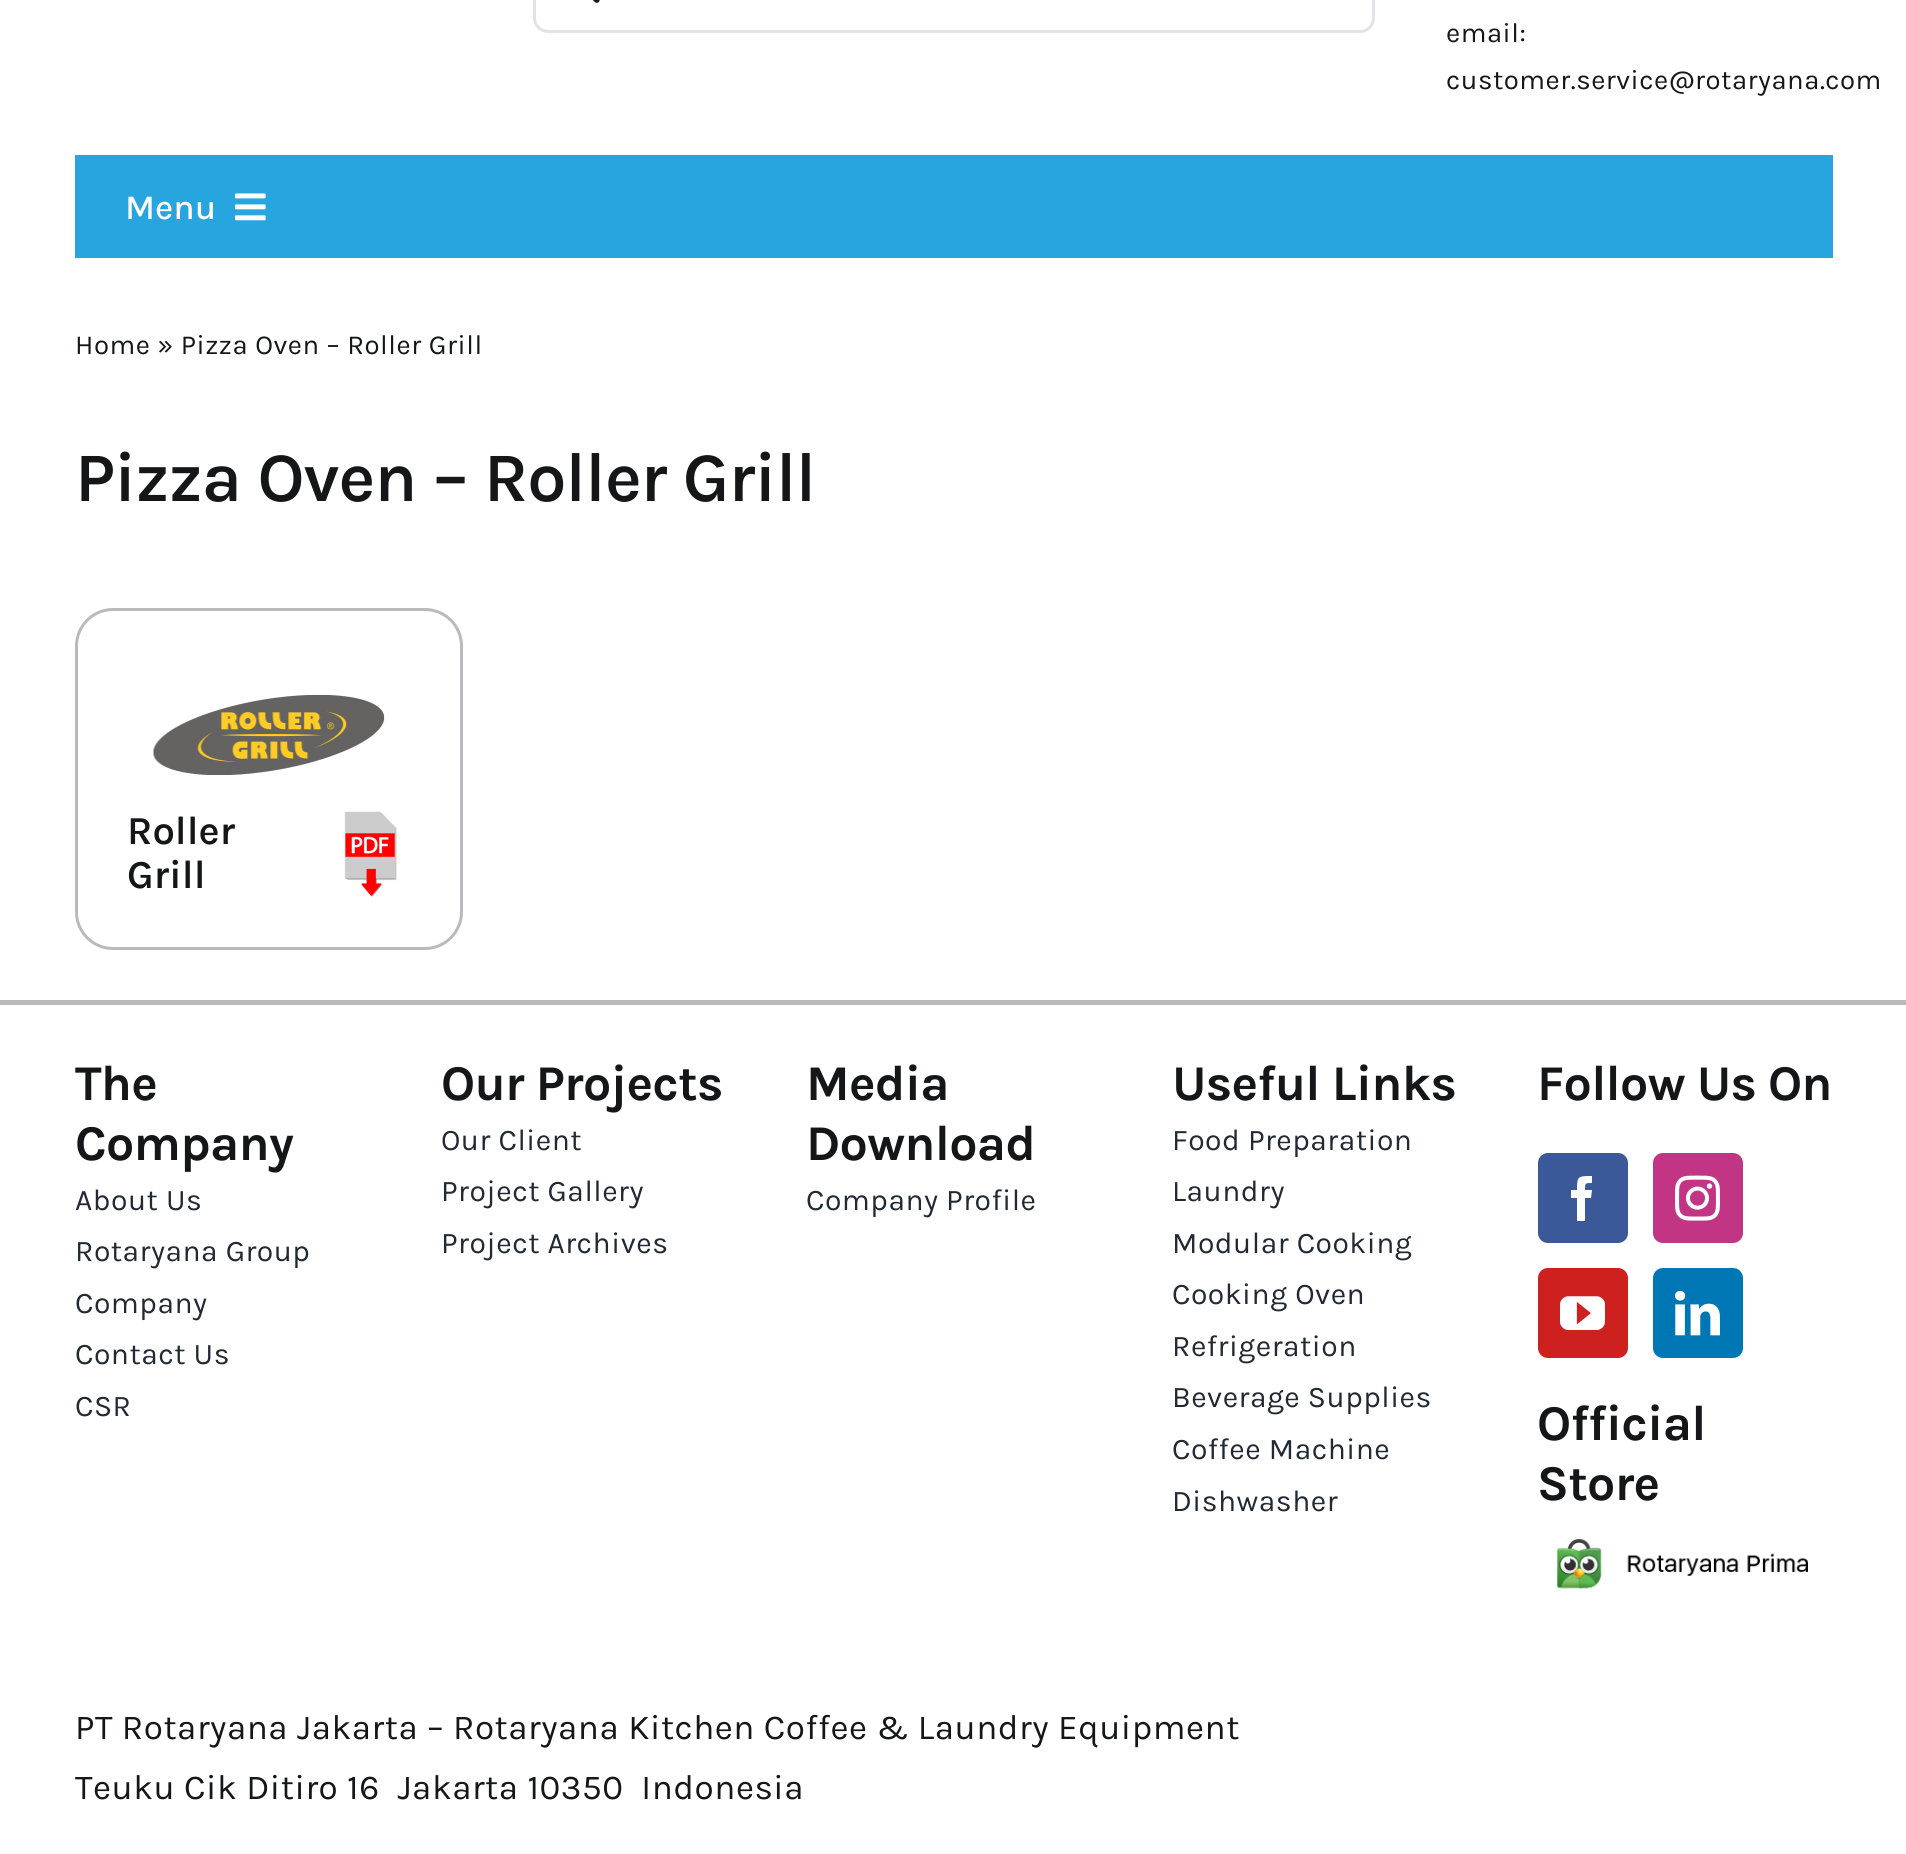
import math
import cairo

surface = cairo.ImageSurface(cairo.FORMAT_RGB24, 1906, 1854)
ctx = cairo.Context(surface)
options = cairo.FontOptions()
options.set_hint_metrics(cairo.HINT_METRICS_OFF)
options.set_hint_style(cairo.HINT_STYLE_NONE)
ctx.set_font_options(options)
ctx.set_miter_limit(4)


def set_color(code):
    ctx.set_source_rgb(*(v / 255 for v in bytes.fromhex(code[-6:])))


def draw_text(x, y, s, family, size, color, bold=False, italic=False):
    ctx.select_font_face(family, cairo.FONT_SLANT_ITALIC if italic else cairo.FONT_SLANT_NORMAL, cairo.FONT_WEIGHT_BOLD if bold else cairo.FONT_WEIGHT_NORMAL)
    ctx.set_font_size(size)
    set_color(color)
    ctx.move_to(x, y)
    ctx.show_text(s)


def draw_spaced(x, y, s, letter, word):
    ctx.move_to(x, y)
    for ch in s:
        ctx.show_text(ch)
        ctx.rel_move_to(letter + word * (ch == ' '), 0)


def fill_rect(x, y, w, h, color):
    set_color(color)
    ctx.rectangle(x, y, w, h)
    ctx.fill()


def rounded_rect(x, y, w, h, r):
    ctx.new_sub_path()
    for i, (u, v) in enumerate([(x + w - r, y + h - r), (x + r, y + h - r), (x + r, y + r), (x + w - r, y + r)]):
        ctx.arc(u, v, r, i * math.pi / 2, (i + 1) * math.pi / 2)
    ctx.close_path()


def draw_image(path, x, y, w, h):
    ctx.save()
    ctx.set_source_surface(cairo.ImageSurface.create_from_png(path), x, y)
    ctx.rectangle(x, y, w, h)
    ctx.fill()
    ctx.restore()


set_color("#ffffff")
ctx.paint()
rounded_rect(534.5, -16.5, 839, 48, 13.5)
set_color("#e3e3e5")
ctx.set_line_width(3)
ctx.stroke()
draw_image("assets/img1.png", 592, 0, 8, 3)
ctx.select_font_face("Karla")
ctx.set_font_size(27.5)
set_color("#141617")
draw_spaced(1446, 42, "email:", 0.53, 0)
draw_spaced(1446, 89, "customer.service@rotaryana.com", 0.53, 0)
fill_rect(75, 155, 1758, 103, "#27a5df")
draw_text(125, 219, "Menu", "Karla Medium", 35, "#ffffff")
draw_image("assets/img2.png", 235, 193, 31, 28)
ctx.select_font_face("Karla")
ctx.set_font_size(27.5)
set_color("#141617")
draw_spaced(75, 354, "Home » Pizza Oven – Roller Grill", 0.53, 0)
ctx.select_font_face("Karla SemiBold")
ctx.set_font_size(70)
draw_spaced(75, 501, "Pizza Oven – Roller Grill", -1.05, 0)
rounded_rect(76.5, 609.5, 385, 339, 36.5)
set_color("#bababc")
ctx.stroke()
draw_image("assets/img3.png", 153, 695, 232, 80)
draw_text(127, 844, "Roller", "Karla SemiBold", 40, "#141617")
draw_text(127, 888, "Grill", "Karla SemiBold", 40, "#141617")
draw_image("assets/img4.png", 344, 811, 53, 86)
fill_rect(0, 1000, 1906, 5, "#bababc")
ctx.select_font_face("Karla", cairo.FONT_SLANT_NORMAL, cairo.FONT_WEIGHT_BOLD)
ctx.set_font_size(50)
set_color("#141617")
draw_spaced(75, 1100, "The", -0.75, 0)
draw_spaced(75, 1160, "Company", -0.75, 0)
ctx.select_font_face("Karla")
ctx.set_font_size(30)
set_color("#212934")
draw_spaced(75, 1210, "About Us", 0.5, 0)
draw_spaced(75, 1261, "Rotaryana Group", 0.5, 0)
draw_spaced(75, 1313, "Company", 0.5, 0)
draw_spaced(75, 1364, "Contact Us", 0.5, 0)
draw_spaced(75, 1416, "CSR", 0.5, 0)
ctx.select_font_face("Karla", cairo.FONT_SLANT_NORMAL, cairo.FONT_WEIGHT_BOLD)
ctx.set_font_size(50)
set_color("#141617")
draw_spaced(441, 1100, "Our Projects", -0.75, 0)
ctx.select_font_face("Karla")
ctx.set_font_size(30)
set_color("#212934")
draw_spaced(441, 1150, "Our Client", 0.5, 0)
draw_spaced(441, 1201, "Project Gallery", 0.5, 0)
draw_spaced(441, 1253, "Project Archives", 0.5, 0)
ctx.select_font_face("Karla", cairo.FONT_SLANT_NORMAL, cairo.FONT_WEIGHT_BOLD)
ctx.set_font_size(50)
set_color("#141617")
draw_spaced(806, 1100, "Media", -0.75, 0)
draw_spaced(806, 1160, "Download", -0.75, 0)
ctx.select_font_face("Karla")
ctx.set_font_size(30)
set_color("#212934")
draw_spaced(806, 1210, "Company Profile", 0.5, 0)
ctx.select_font_face("Karla", cairo.FONT_SLANT_NORMAL, cairo.FONT_WEIGHT_BOLD)
ctx.set_font_size(50)
set_color("#141617")
draw_spaced(1172, 1100, "Useful Links", -0.75, 0)
ctx.select_font_face("Karla")
ctx.set_font_size(30)
set_color("#212934")
draw_spaced(1172, 1150, "Food Preparation", 0.5, 0)
draw_spaced(1172, 1201, "Laundry", 0.5, 0)
draw_spaced(1172, 1253, "Modular Cooking", 0.5, 0)
draw_spaced(1172, 1304, "Cooking Oven", 0.5, 0)
draw_spaced(1172, 1356, "Refrigeration", 0.5, 0)
draw_spaced(1172, 1407, "Beverage Supplies", 0.5, 0)
draw_spaced(1172, 1459, "Coffee Machine", 0.5, 0)
draw_spaced(1172, 1511, "Dishwasher", 0.5, 0)
ctx.select_font_face("Karla", cairo.FONT_SLANT_NORMAL, cairo.FONT_WEIGHT_BOLD)
ctx.set_font_size(50)
set_color("#141617")
draw_spaced(1537, 1100, "Follow Us On", -0.75, 0)
set_color("#3b5998")
rounded_rect(1539.5, 1154.5, 87, 87, 8.5)
ctx.fill_preserve()
ctx.stroke()
set_color("#ffffff")
ctx.new_path()
ctx.move_to(1585, 1221)
ctx.line_to(1577, 1221)
ctx.line_to(1577, 1198)
ctx.line_to(1571, 1198)
ctx.line_to(1571, 1190)
ctx.line_to(1577, 1190)
ctx.curve_to(1577, 1176, 1578, 1176, 1592, 1176)
ctx.line_to(1592, 1183)
ctx.curve_to(1585, 1183, 1585, 1183, 1585, 1190)
ctx.line_to(1592, 1190)
ctx.line_to(1591, 1198)
ctx.line_to(1585, 1198)
ctx.close_path()
ctx.fill()
set_color("#c13584")
rounded_rect(1654.5, 1154.5, 87, 87, 8.5)
ctx.fill_preserve()
ctx.stroke()
draw_image("assets/img5.png", 1675, 1175, 45, 46)
set_color("#cd201f")
rounded_rect(1539.5, 1269.5, 87, 87, 8.5)
ctx.fill_preserve()
ctx.stroke()
draw_image("assets/img6.png", 1560, 1296, 45, 34)
set_color("#0077b5")
rounded_rect(1654.5, 1269.5, 87, 87, 8.5)
ctx.fill_preserve()
ctx.stroke()
draw_image("assets/img7.png", 1675, 1290, 45, 46)
set_color("#141617")
draw_spaced(1537, 1440, "Official", -0.75, 0)
draw_spaced(1537, 1500, "Store", -0.75, 0)
draw_image("assets/img8.png", 1557, 1539, 251, 50)
ctx.select_font_face("Karla")
ctx.set_font_size(35)
draw_spaced(75, 1739, "PT Rotaryana Jakarta – Rotaryana Kitchen Coffee & Laundry Equipment", 0.53, 0)
draw_spaced(75, 1799, "Teuku Cik Ditiro 16  Jakarta 10350  Indonesia", 0.53, 0)
surface.write_to_png("output.png")
